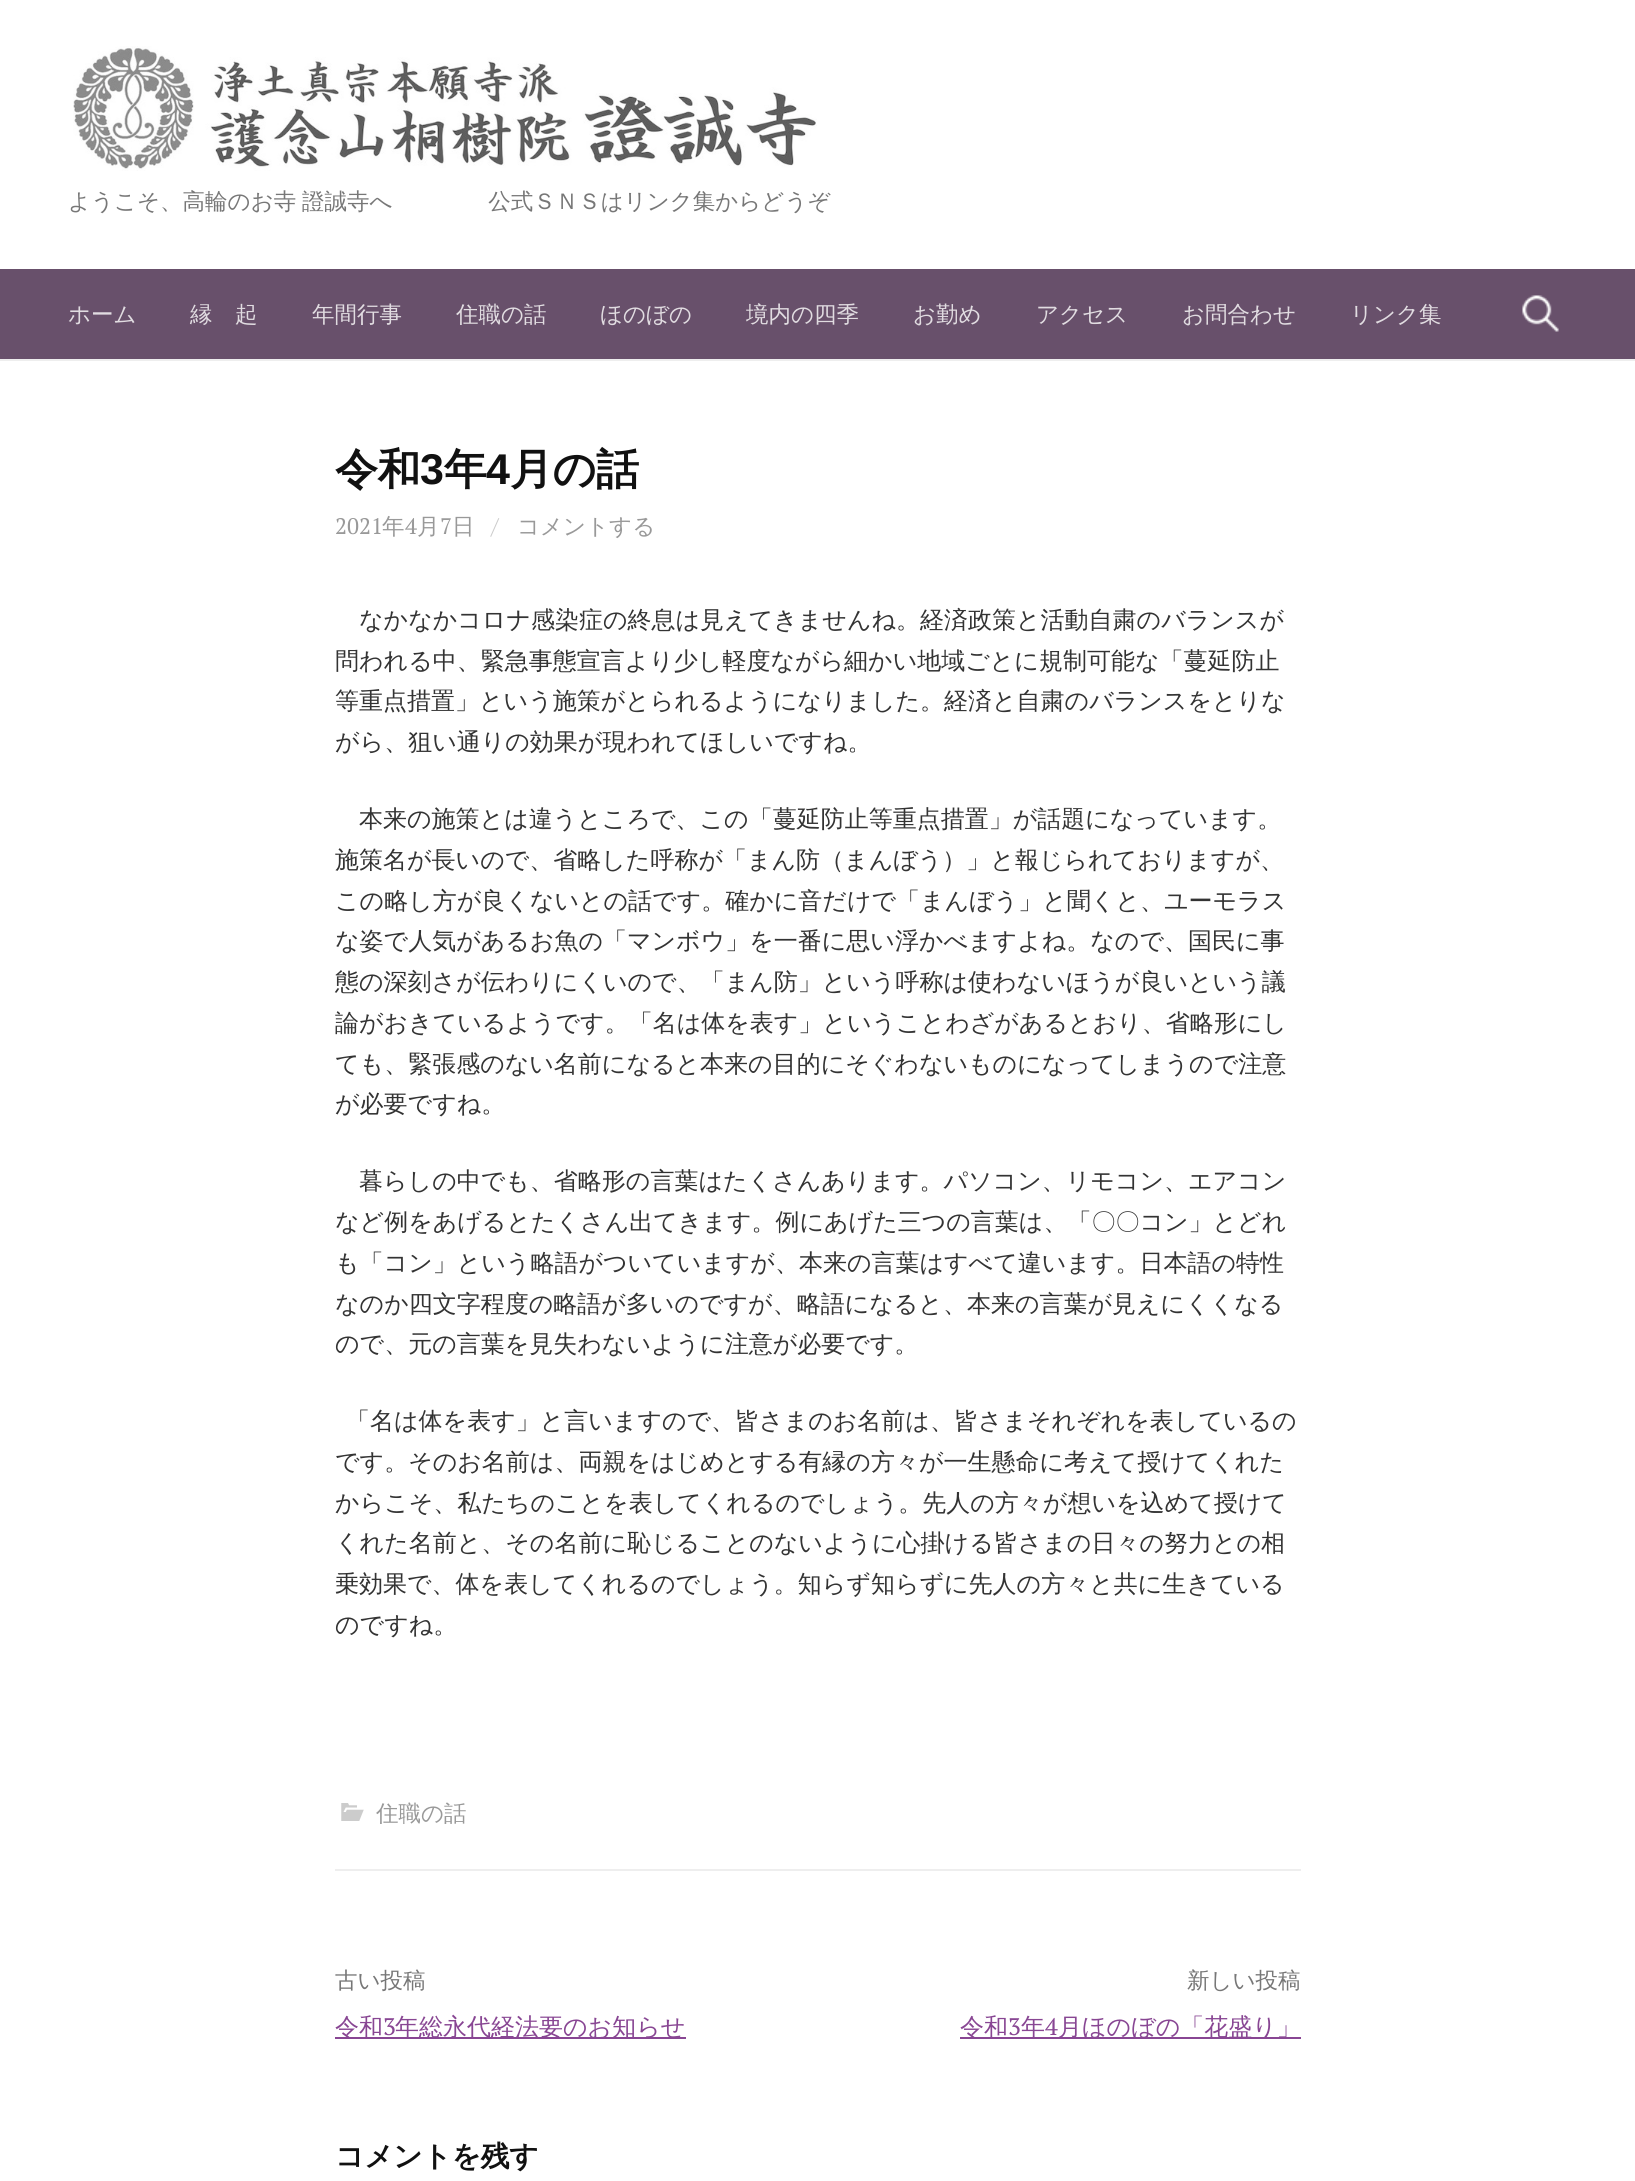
import math
import cairo

surface = cairo.ImageSurface(cairo.FORMAT_RGB24, 1635, 2181)
ctx = cairo.Context(surface)
options = cairo.FontOptions()
options.set_hint_metrics(cairo.HINT_METRICS_OFF)
options.set_hint_style(cairo.HINT_STYLE_NONE)
ctx.set_font_options(options)
ctx.set_miter_limit(4)


def set_color(code):
    ctx.set_source_rgb(*(v / 255 for v in bytes.fromhex(code[-6:])))


def draw_text(x, y, s, family, size, color, bold=False, italic=False):
    ctx.select_font_face(family, cairo.FONT_SLANT_ITALIC if italic else cairo.FONT_SLANT_NORMAL, cairo.FONT_WEIGHT_BOLD if bold else cairo.FONT_WEIGHT_NORMAL)
    ctx.set_font_size(size)
    set_color(color)
    ctx.move_to(x, y)
    ctx.show_text(s)


def draw_spaced(x, y, s, letter, word):
    ctx.move_to(x, y)
    for ch in s:
        ctx.show_text(ch)
        ctx.rel_move_to(letter + word * (ch == ' '), 0)


def fill_rect(x, y, w, h, color):
    set_color(color)
    ctx.rectangle(x, y, w, h)
    ctx.fill()


def draw_image(path, x, y, w, h):
    ctx.save()
    ctx.set_source_surface(cairo.ImageSurface.create_from_png(path), x, y)
    ctx.rectangle(x, y, w, h)
    ctx.fill()
    ctx.restore()


set_color("#ffffff")
ctx.paint()
fill_rect(0, 359, 1635, 2, "#eeeeee")
draw_image("assets/img1.png", 73, 46, 744, 125)
ctx.select_font_face("WenQuanYi Zen Hei Medium")
ctx.set_font_size(22.5)
set_color("#777777")
draw_spaced(68, 209, "ようこそ、高輪のお寺 證誠寺へ 　　　　公式ＳＮＳはリンク集からどうぞ", 0, -1)
fill_rect(0, 269, 1635, 90, "#68506b")
draw_text(68, 322, "ホーム", "WenQuanYi Zen Hei Medium", 22.5, "#e1dce1")
draw_text(190, 322, "縁　起", "WenQuanYi Zen Hei Medium", 22.5, "#e1dce1")
draw_text(312, 322, "年間行事", "WenQuanYi Zen Hei Medium", 22.5, "#e1dce1")
draw_text(456, 322, "住職の話", "WenQuanYi Zen Hei Medium", 22.5, "#e1dce1")
draw_text(600, 322, "ほのぼの", "WenQuanYi Zen Hei Medium", 22.5, "#e1dce1")
draw_text(746, 322, "境内の四季", "WenQuanYi Zen Hei Medium", 22.5, "#e1dce1")
draw_text(913, 322, "お勤め", "WenQuanYi Zen Hei Medium", 22.5, "#e1dce1")
draw_text(1036, 322, "アクセス", "WenQuanYi Zen Hei Medium", 22.5, "#e1dce1")
draw_text(1182, 322, "お問合わせ", "WenQuanYi Zen Hei Medium", 22.5, "#e1dce1")
draw_text(1350, 322, "リンク集", "WenQuanYi Zen Hei Medium", 22.5, "#e1dce1")
draw_image("assets/img2.png", 1522, 295, 37, 37)
fill_rect(335, 1869, 966, 2, "#eeeeee")
ctx.select_font_face("WenQuanYi Zen Hei", cairo.FONT_SLANT_NORMAL, cairo.FONT_WEIGHT_BOLD)
ctx.set_font_size(43)
set_color("#111111")
draw_spaced(335, 484, "令和", -0.5, 0)
ctx.select_font_face("Liberation Sans", cairo.FONT_SLANT_NORMAL, cairo.FONT_WEIGHT_BOLD)
draw_spaced(420, 484, "3", -0.5, 0)
ctx.select_font_face("WenQuanYi Zen Hei", cairo.FONT_SLANT_NORMAL, cairo.FONT_WEIGHT_BOLD)
draw_spaced(444, 484, "年", -0.5, 0)
ctx.select_font_face("Liberation Sans", cairo.FONT_SLANT_NORMAL, cairo.FONT_WEIGHT_BOLD)
draw_spaced(486, 484, "4", -0.5, 0)
ctx.select_font_face("WenQuanYi Zen Hei", cairo.FONT_SLANT_NORMAL, cairo.FONT_WEIGHT_BOLD)
draw_spaced(510, 484, "月の話", -0.5, 0)
draw_text(335, 534, "2021", "PT Serif", 22.5, "#999999")
draw_text(382, 534, "年", "WenQuanYi Zen Hei Medium", 22.5, "#999999")
draw_text(405, 534, "4", "PT Serif", 22.5, "#999999")
draw_text(417, 534, "月", "WenQuanYi Zen Hei Medium", 22.5, "#999999")
draw_text(440, 534, "7", "PT Serif", 22.5, "#999999")
draw_text(452, 534, "日", "WenQuanYi Zen Hei Medium", 22.5, "#999999")
draw_text(491, 534, "/", "PT Serif", 22.5, "#cccccc")
draw_text(517, 534, "コメントする", "WenQuanYi Zen Hei Medium", 22.5, "#999999")
draw_text(359, 628, "なかなかコロナ感染症の終息は見えてきませんね。経済政策と活動自粛のバランスが", "WenQuanYi Zen Hei Medium", 24, "#333333")
draw_text(335, 669, "問われる中、緊急事態宣言より少し軽度ながら細かい地域ごとに規制可能な「蔓延防止", "WenQuanYi Zen Hei Medium", 24, "#333333")
draw_text(335, 709, "等重点措置」という施策がとられるようになりました。経済と自粛のバランスをとりな", "WenQuanYi Zen Hei Medium", 24, "#333333")
draw_text(335, 750, "がら、狙い通りの効果が現われてほしいですね。", "WenQuanYi Zen Hei Medium", 24, "#333333")
draw_text(359, 827, "本来の施策とは違うところで、この「蔓延防止等重点措置」が話題になっています。", "WenQuanYi Zen Hei Medium", 24, "#333333")
draw_text(335, 868, "施策名が長いので、省略した呼称が「まん防（まんぼう）」と報じられておりますが、", "WenQuanYi Zen Hei Medium", 24, "#333333")
draw_text(335, 909, "この略し方が良くないとの話です。確かに音だけで「まんぼう」と聞くと、ユーモラス", "WenQuanYi Zen Hei Medium", 24, "#333333")
draw_text(335, 949, "な姿で人気があるお魚の「マンボウ」を一番に思い浮かべますよね。なので、国民に事", "WenQuanYi Zen Hei Medium", 24, "#333333")
draw_text(335, 990, "態の深刻さが伝わりにくいので、「まん防」という呼称は使わないほうが良いという議", "WenQuanYi Zen Hei Medium", 24, "#333333")
draw_text(335, 1031, "論がおきているようです。「名は体を表す」ということわざがあるとおり、省略形にし", "WenQuanYi Zen Hei Medium", 24, "#333333")
draw_text(335, 1072, "ても、緊張感のない名前になると本来の目的にそぐわないものになってしまうので注意", "WenQuanYi Zen Hei Medium", 24, "#333333")
draw_text(335, 1112, "が必要ですね。", "WenQuanYi Zen Hei Medium", 24, "#333333")
draw_text(359, 1189, "暮らしの中でも、省略形の言葉はたくさんあります。パソコン、リモコン、エアコン", "WenQuanYi Zen Hei Medium", 24, "#333333")
draw_text(335, 1230, "など例をあげるとたくさん出てきます。例にあげた三つの言葉は、「〇〇コン」とどれ", "WenQuanYi Zen Hei Medium", 24, "#333333")
draw_text(335, 1271, "も「コン」という略語がついていますが、本来の言葉はすべて違います。日本語の特性", "WenQuanYi Zen Hei Medium", 24, "#333333")
draw_text(335, 1312, "なのか四文字程度の略語が多いのですが、略語になると、本来の言葉が見えにくくなる", "WenQuanYi Zen Hei Medium", 24, "#333333")
draw_text(335, 1352, "ので、元の言葉を見失わないように注意が必要です。", "WenQuanYi Zen Hei Medium", 24, "#333333")
draw_text(346, 1429, "「名は体を表す」と言いますので、皆さまのお名前は、皆さまそれぞれを表しているの", "WenQuanYi Zen Hei Medium", 24, "#333333")
draw_text(335, 1470, "です。そのお名前は、両親をはじめとする有縁の方々が一生懸命に考えて授けてくれた", "WenQuanYi Zen Hei Medium", 24, "#333333")
draw_text(335, 1511, "からこそ、私たちのことを表してくれるのでしょう。先人の方々が想いを込めて授けて", "WenQuanYi Zen Hei Medium", 24, "#333333")
draw_text(335, 1551, "くれた名前と、その名前に恥じることのないように心掛ける皆さまの日々の努力との相", "WenQuanYi Zen Hei Medium", 24, "#333333")
draw_text(335, 1592, "乗効果で、体を表してくれるのでしょう。知らず知らずに先人の方々と共に生きている", "WenQuanYi Zen Hei Medium", 24, "#333333")
draw_text(335, 1633, "のですね。", "WenQuanYi Zen Hei Medium", 24, "#333333")
draw_image("assets/img3.png", 341, 1803, 23, 18)
draw_text(376, 1821, "住職の話", "WenQuanYi Zen Hei Medium", 22.5, "#999999")
draw_text(335, 1988, "古い投稿", "WenQuanYi Zen Hei Medium", 22.5, "#777777")
fill_rect(335, 2037, 351, 2, "#884693")
draw_text(335, 2035, "令和", "WenQuanYi Zen Hei Medium", 24, "#884693")
draw_text(383, 2035, "3", "PT Serif", 24, "#884693")
draw_text(395, 2035, "年総永代経法要のお知らせ", "WenQuanYi Zen Hei Medium", 24, "#884693")
draw_text(1187, 1988, "新しい投稿", "WenQuanYi Zen Hei Medium", 22.5, "#777777")
fill_rect(960, 2037, 341, 2, "#884693")
draw_text(960, 2035, "令和", "WenQuanYi Zen Hei Medium", 24, "#884693")
draw_text(1008, 2035, "3", "PT Serif", 24, "#884693")
draw_text(1021, 2035, "年", "WenQuanYi Zen Hei Medium", 24, "#884693")
draw_text(1045, 2035, "4", "PT Serif", 24, "#884693")
draw_text(1058, 2035, "月ほのぼの「花盛り」", "WenQuanYi Zen Hei Medium", 24, "#884693")
ctx.select_font_face("WenQuanYi Zen Hei", cairo.FONT_SLANT_NORMAL, cairo.FONT_WEIGHT_BOLD)
ctx.set_font_size(28.75)
set_color("#111111")
draw_spaced(335, 2166, "コメントを残す", -0.25, 0)
surface.write_to_png("output.png")
